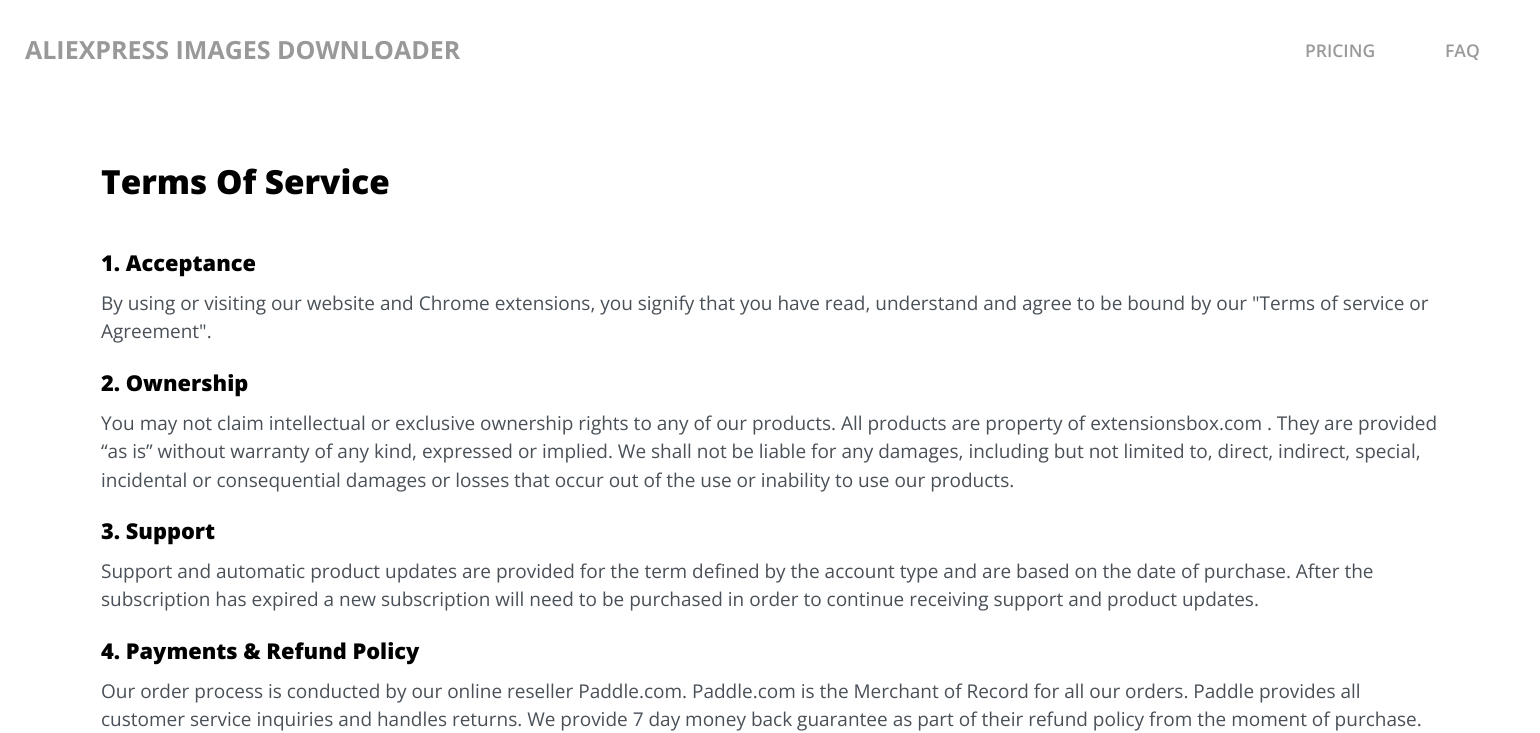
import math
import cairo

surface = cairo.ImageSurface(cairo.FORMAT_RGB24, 1540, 733)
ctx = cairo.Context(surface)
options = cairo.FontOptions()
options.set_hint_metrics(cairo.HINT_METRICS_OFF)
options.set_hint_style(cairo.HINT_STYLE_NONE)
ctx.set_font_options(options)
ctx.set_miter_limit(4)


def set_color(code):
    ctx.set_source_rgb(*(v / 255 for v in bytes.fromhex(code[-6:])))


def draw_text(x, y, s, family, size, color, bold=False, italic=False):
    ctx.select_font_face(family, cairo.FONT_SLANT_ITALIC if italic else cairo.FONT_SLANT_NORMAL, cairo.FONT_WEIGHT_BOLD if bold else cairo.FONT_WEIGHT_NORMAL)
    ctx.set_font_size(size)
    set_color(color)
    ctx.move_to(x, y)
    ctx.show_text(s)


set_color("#ffffff")
ctx.paint()
draw_text(25, 59, "ALIEXPRESS IMAGES DOWNLOADER", "Open Sans", 25, "#999999", bold=True)
draw_text(1305, 57, "PRICING", "Open Sans SemiBold", 17.5, "#999999")
draw_text(1445, 57, "FAQ", "Open Sans SemiBold", 17.5, "#999999")
draw_text(101, 194, "Terms Of Service", "Open Sans ExtraBold", 33.25, "#000000")
draw_text(101, 271, "1. Acceptance", "Open Sans ExtraBold", 21.8, "#000000")
draw_text(101, 310, "By using or visiting our website and Chrome extensions, you signify that you have read, understand and agree to be bound by our \"Terms of service or", "Open Sans", 19, "#495057")
draw_text(101, 338, "Agreement\".", "Open Sans", 19, "#495057")
draw_text(101, 391, "2. Ownership", "Open Sans ExtraBold", 21.8, "#000000")
draw_text(101, 430, "You may not claim intellectual or exclusive ownership rights to any of our products. All products are property of extensionsbox.com . They are provided", "Open Sans", 19, "#495057")
draw_text(101, 458, "“as is” without warranty of any kind, expressed or implied. We shall not be liable for any damages, including but not limited to, direct, indirect, special,", "Open Sans", 19, "#495057")
draw_text(101, 487, "incidental or consequential damages or losses", "Open Sans", 19, "#495057")
draw_text(514, 487, "that occur out of the use or inability to use our products.", "Open Sans", 19, "#495057")
draw_text(101, 539, "3. Support", "Open Sans ExtraBold", 21.8, "#000000")
draw_text(101, 578, "Support and automatic product updates are provided for the term defined by the account type and are based on the date of purchase. After the", "Open Sans", 19, "#495057")
draw_text(101, 606, "subscription has expired a new subscription will need to be purchased in order to continue receiving support and product updates.", "Open Sans", 19, "#495057")
draw_text(101, 659, "4. Payments & Refund Policy", "Open Sans ExtraBold", 21.8, "#000000")
draw_text(101, 698, "Our order process is conducted by our online reseller Paddle.com. Paddle.com is the Merchant of Record for all our orders. Paddle provides all", "Open Sans", 19, "#495057")
draw_text(101, 726, "customer service inquiries and handles returns. We provide 7 day money back guarantee as part of their refund policy from the moment of purchase.", "Open Sans", 19, "#495057")
surface.write_to_png("output.png")
